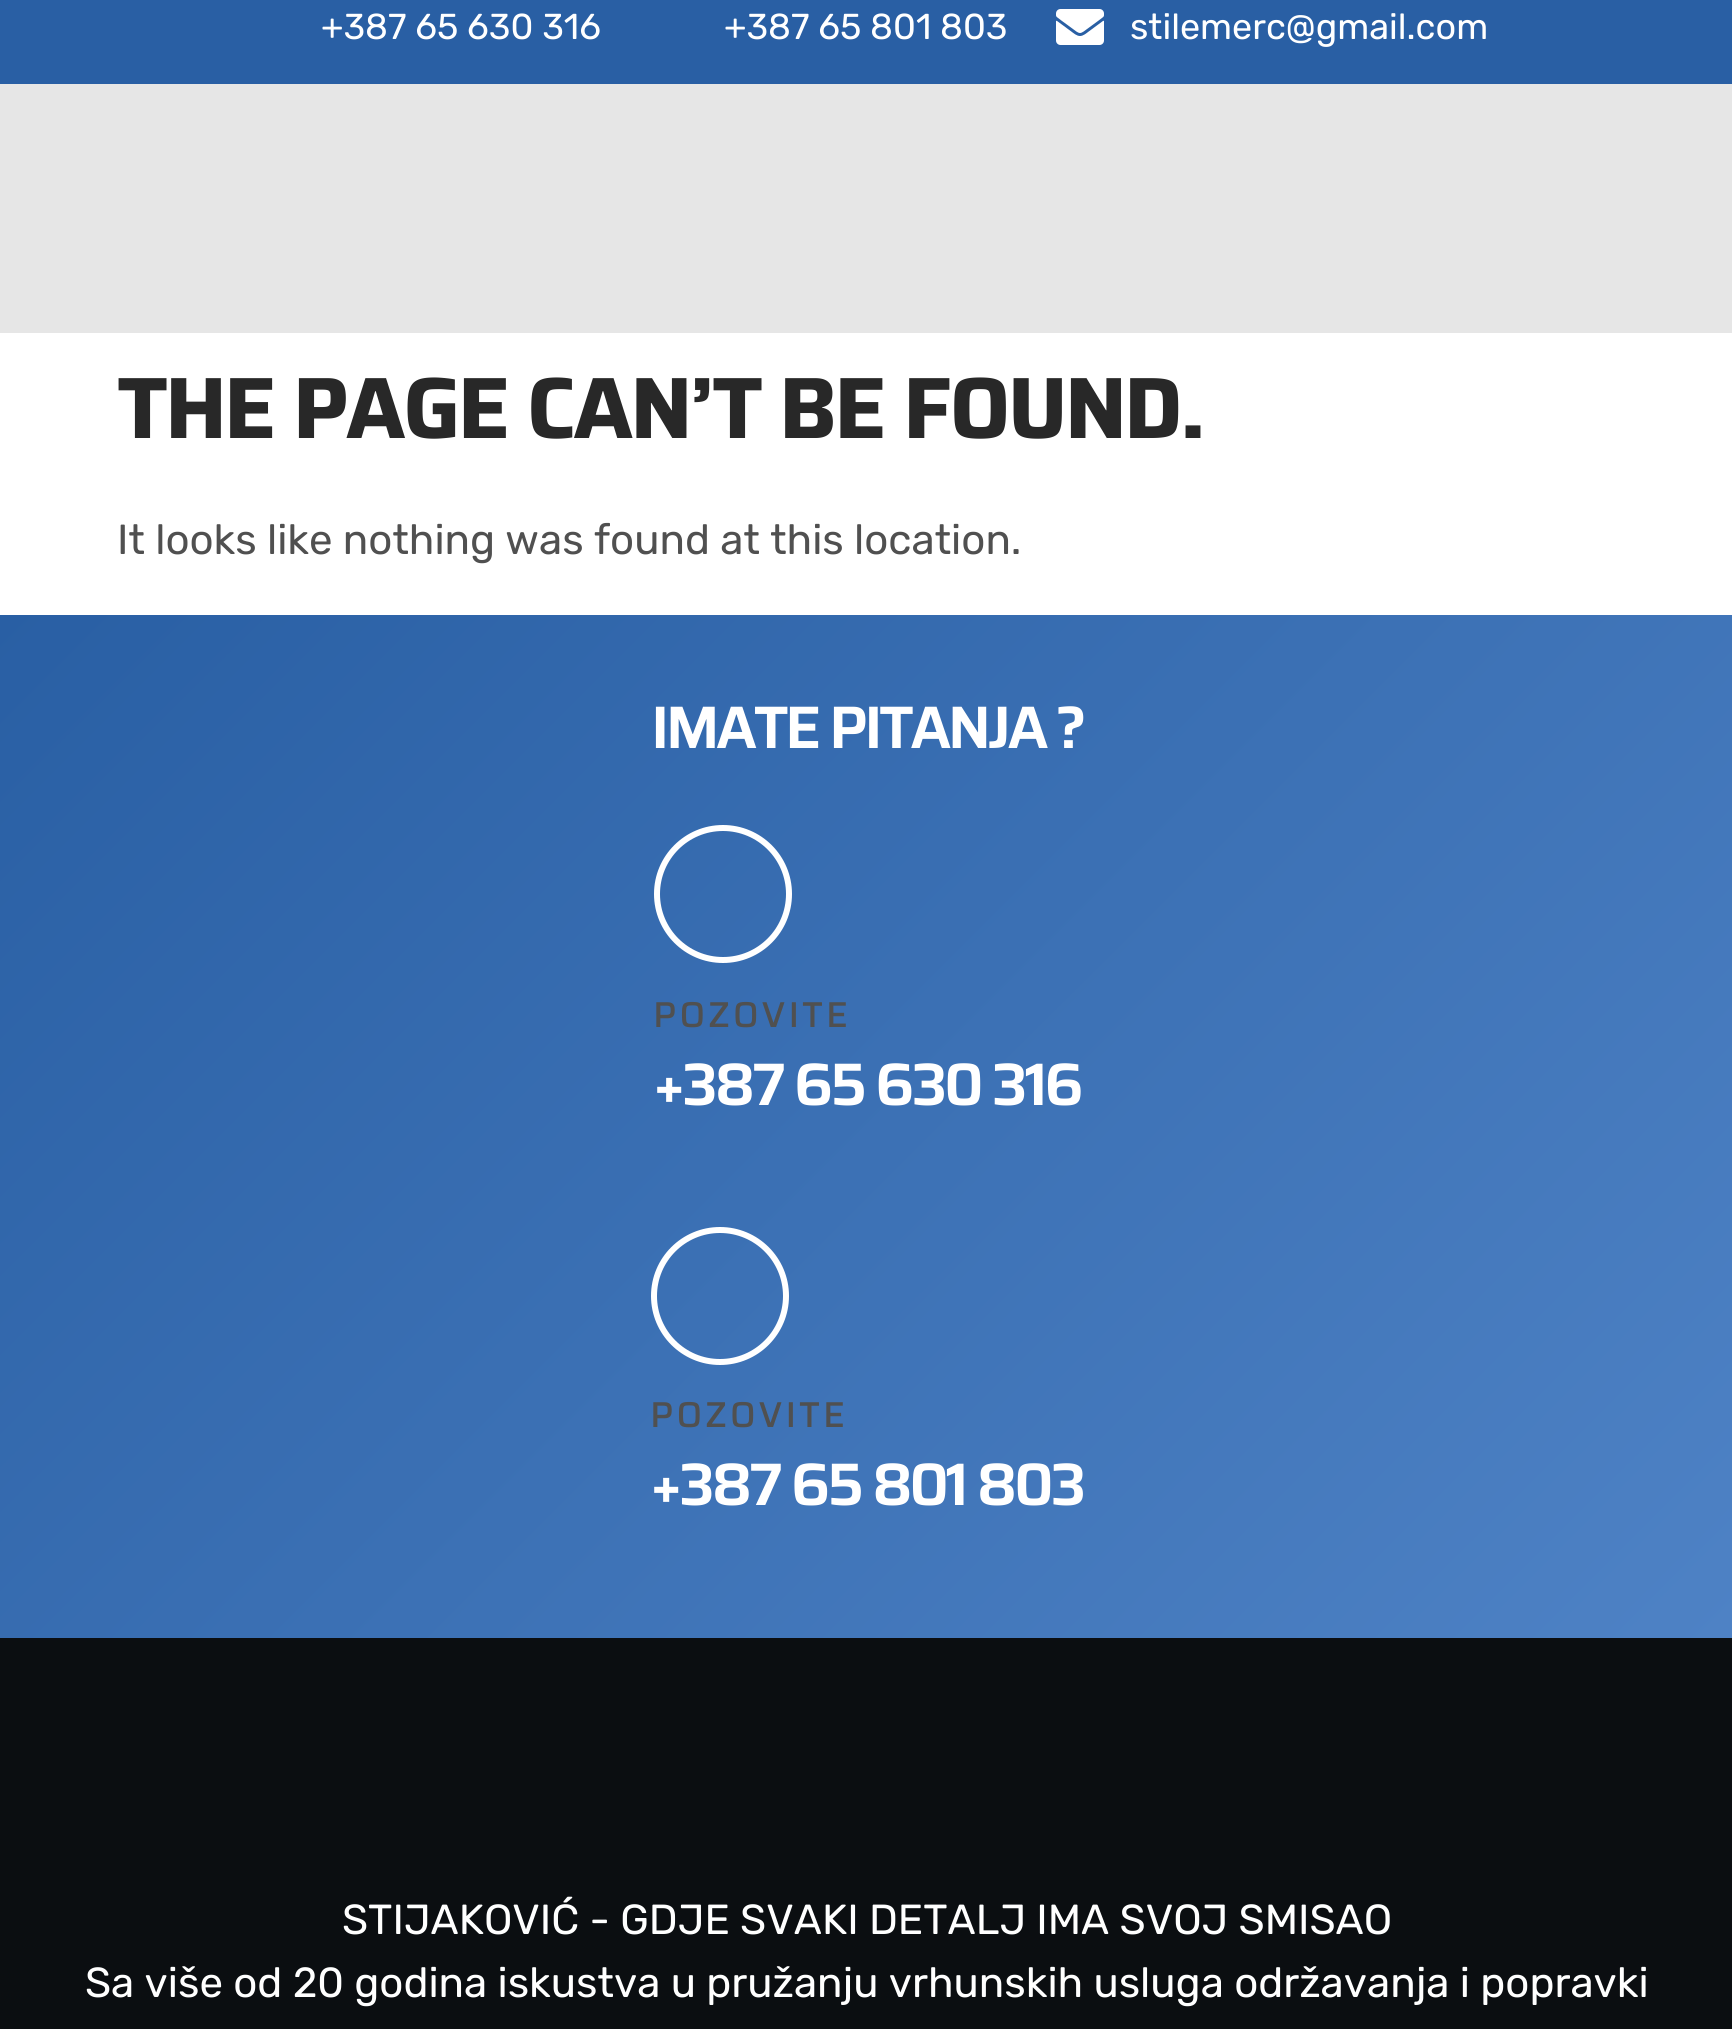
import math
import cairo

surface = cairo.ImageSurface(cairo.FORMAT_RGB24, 1732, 2029)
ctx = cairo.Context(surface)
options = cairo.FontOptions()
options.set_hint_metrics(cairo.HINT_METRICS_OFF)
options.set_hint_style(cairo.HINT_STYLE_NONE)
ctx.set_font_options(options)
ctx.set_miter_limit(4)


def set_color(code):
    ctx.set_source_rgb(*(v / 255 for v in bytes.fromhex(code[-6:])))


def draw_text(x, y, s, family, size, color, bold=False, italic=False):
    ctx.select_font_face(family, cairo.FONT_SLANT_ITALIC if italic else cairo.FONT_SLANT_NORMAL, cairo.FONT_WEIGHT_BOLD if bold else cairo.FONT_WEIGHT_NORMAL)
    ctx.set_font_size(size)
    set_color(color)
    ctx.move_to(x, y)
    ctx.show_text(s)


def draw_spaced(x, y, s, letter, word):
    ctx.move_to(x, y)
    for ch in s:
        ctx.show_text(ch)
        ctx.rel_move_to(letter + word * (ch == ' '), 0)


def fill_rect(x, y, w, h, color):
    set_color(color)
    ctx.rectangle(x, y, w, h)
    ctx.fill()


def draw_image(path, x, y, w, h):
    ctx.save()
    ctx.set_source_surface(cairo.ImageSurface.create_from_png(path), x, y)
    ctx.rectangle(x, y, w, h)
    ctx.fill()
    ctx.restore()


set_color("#ffffff")
ctx.paint()
fill_rect(0, 0, 1732, 84, "#295fa4")
draw_text(321, 39, "+387 65 630 316", "Rubik", 36, "#ffffff")
draw_text(724, 39, "+387 65 801 803", "Rubik", 36, "#ffffff")
draw_image("assets/img1.png", 1056, 9, 48, 36)
draw_text(1130, 39, "stilemerc@gmail.com", "Rubik", 36, "#ffffff")
fill_rect(0, 84, 1732, 249, "#e6e6e6")
ctx.select_font_face("Saira", cairo.FONT_SLANT_NORMAL, cairo.FONT_WEIGHT_BOLD)
ctx.set_font_size(87)
set_color("#282828")
draw_spaced(117, 438, "THE PAGE CAN’T BE FOUND.", -3, 0)
draw_text(117, 554, "It looks like nothing was found at this location.", "Rubik", 42, "#505050")
gradient = cairo.LinearGradient(178, 437, 1556, 1816)
gradient.add_color_stop_rgba(0, 0.161, 0.373, 0.643, 1)
gradient.add_color_stop_rgba(1, 0.306, 0.51, 0.773, 1)
ctx.set_source(gradient)
ctx.rectangle(0, 615, 1732, 1023)
ctx.fill()
ctx.select_font_face("Saira SemiBold")
ctx.set_font_size(60)
set_color("#ffffff")
draw_spaced(651, 748, "IMATE PITANJA ?", -3.6, 0)
ctx.new_path()
ctx.arc(723, 894, 66, 0, 2 * math.pi)
ctx.set_line_width(6)
ctx.stroke()
ctx.select_font_face("Saira Medium")
ctx.set_font_size(36)
set_color("#505050")
draw_spaced(653, 1027, "POZOVITE", 3, 0)
ctx.select_font_face("Saira SemiBold")
ctx.set_font_size(60)
set_color("#ffffff")
draw_spaced(653, 1105, "+387 65 630 316", -3.6, 0)
ctx.new_path()
ctx.arc(720, 1296, 66, 0, 2 * math.pi)
ctx.stroke()
ctx.select_font_face("Saira Medium")
ctx.set_font_size(36)
set_color("#505050")
draw_spaced(650, 1427, "POZOVITE", 3, 0)
ctx.select_font_face("Saira SemiBold")
ctx.set_font_size(60)
set_color("#ffffff")
draw_spaced(650, 1505, "+387 65 801 803", -3.6, 0)
fill_rect(0, 1638, 1732, 391, "#0b0e11")
draw_text(342, 1934, "STIJAKOVIĆ - GDJE SVAKI DETALJ IMA SVOJ SMISAO", "Rubik", 42, "#ffffff")
draw_text(85, 1997, "Sa više od 20 godina iskustva u pružanju vrhunskih usluga održavanja i popravki", "Rubik", 42, "#ffffff")
surface.write_to_png("output.png")
